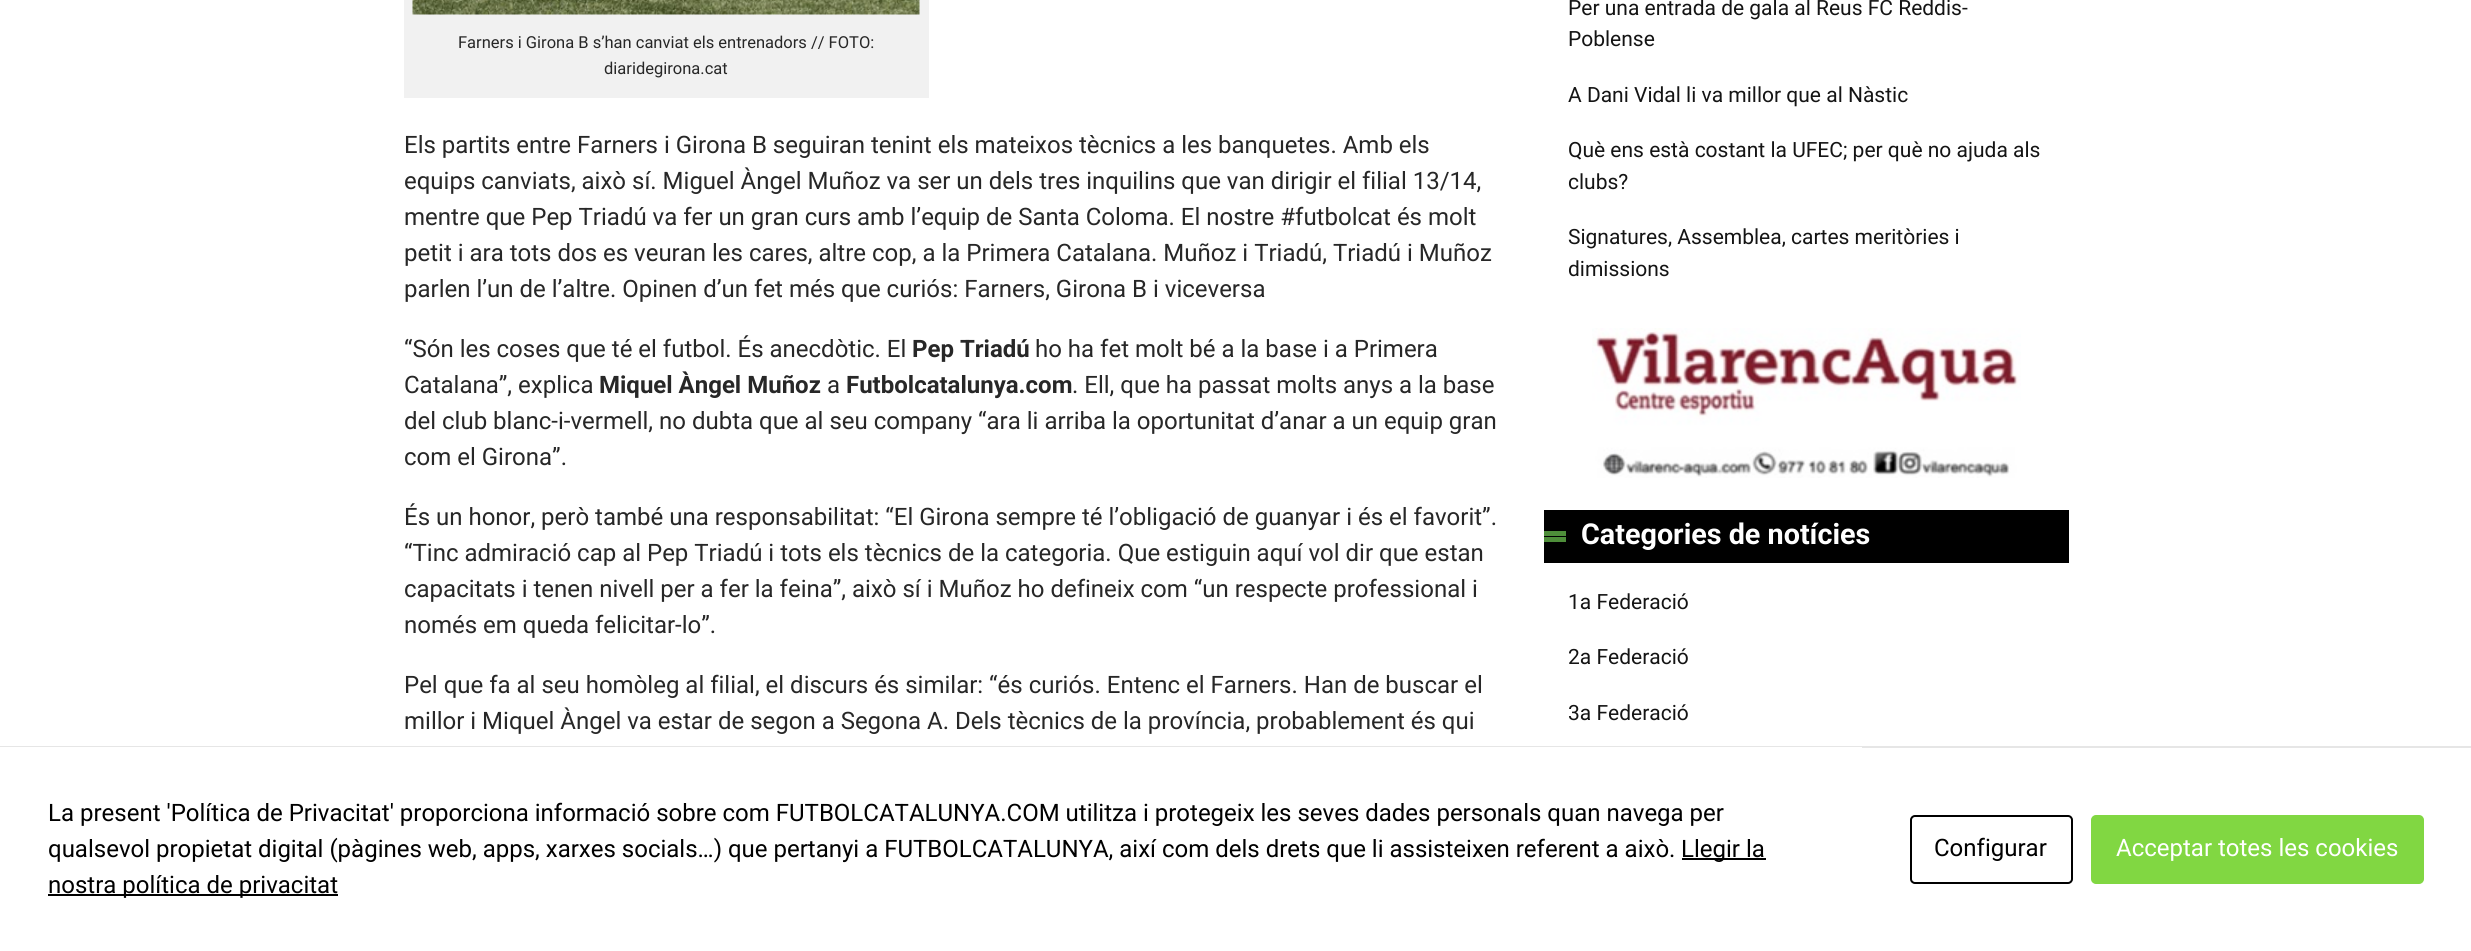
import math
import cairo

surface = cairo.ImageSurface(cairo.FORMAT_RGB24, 2471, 951)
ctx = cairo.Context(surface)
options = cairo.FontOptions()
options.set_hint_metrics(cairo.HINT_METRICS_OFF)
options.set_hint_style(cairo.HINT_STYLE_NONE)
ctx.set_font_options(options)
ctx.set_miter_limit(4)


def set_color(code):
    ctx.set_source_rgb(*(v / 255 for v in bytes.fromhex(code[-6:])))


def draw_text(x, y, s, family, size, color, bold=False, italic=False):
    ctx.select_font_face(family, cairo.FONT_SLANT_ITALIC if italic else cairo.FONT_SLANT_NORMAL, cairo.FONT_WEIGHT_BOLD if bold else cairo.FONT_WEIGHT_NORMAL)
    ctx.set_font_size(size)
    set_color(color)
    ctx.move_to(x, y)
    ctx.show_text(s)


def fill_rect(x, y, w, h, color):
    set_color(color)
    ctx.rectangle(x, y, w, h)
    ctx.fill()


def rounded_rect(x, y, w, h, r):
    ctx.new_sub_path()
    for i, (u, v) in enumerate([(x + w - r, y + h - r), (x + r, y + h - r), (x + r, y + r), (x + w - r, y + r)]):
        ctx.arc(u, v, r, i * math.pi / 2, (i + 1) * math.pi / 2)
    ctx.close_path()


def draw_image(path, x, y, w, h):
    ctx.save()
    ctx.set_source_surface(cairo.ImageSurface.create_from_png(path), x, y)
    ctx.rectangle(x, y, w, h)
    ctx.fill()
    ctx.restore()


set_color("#ffffff")
ctx.paint()
fill_rect(404, 0, 525, 98, "#f1f1f1")
draw_image("assets/img1.png", 412, 0, 508, 15)
draw_text(458, 48, "Farners i Girona B s’han canviat els entrenadors // FOTO:", "Roboto", 16.5, "#272727")
draw_text(604, 74, "diaridegirona.cat", "Roboto", 16.5, "#272727")
draw_text(404, 153, "Els partits entre Farners i Girona B seguiran tenint els mateixos tècnics a les banquetes. Amb els", "Roboto", 24, "#272727")
draw_text(404, 189, "equips canviats, això sí. Miguel Àngel Muñoz va ser un dels tres inquilins que van dirigir el filial 13/14,", "Roboto", 24, "#272727")
draw_text(404, 225, "mentre que Pep Triadú va fer un gran curs amb l’equip de Santa Coloma. El nostre #futbolcat és molt", "Roboto", 24, "#272727")
draw_text(404, 261, "petit i ara tots dos es veuran les cares, altre cop, a la Primera Catalana. Muñoz i Triadú, Triadú i Muñoz", "Roboto", 24, "#272727")
draw_text(404, 297, "parlen l’un de l’altre. Opinen d’un fet més que curiós: Farners, Girona B i viceversa", "Roboto", 24, "#272727")
draw_text(404, 357, "“Són les coses que té el futbol. És anecdòtic. El", "Roboto", 24, "#272727")
draw_text(912, 357, "Pep Triadú", "Roboto", 24, "#272727", bold=True)
draw_text(1035, 357, "ho ha fet molt bé a la base i a Primera", "Roboto", 24, "#272727")
draw_text(404, 393, "Catalana”, explica", "Roboto", 24, "#272727")
draw_text(599, 393, "Miquel Àngel Muñoz", "Roboto", 24, "#272727", bold=True)
draw_text(827, 393, "a", "Roboto", 24, "#272727")
draw_text(846, 393, "Futbolcatalunya.com", "Roboto", 24, "#272727", bold=True)
draw_text(1072, 393, ". Ell, que ha passat molts anys a la base", "Roboto", 24, "#272727")
draw_text(404, 429, "del club blanc-i-vermell, no dubta que al seu company “ara li arriba la oportunitat d’anar a un equip gran", "Roboto", 24, "#272727")
draw_text(404, 465, "com el Girona”.", "Roboto", 24, "#272727")
draw_text(404, 525, "És un honor, però també una responsabilitat: “El Girona sempre té l’obligació de guanyar i és el favorit”.", "Roboto", 24, "#272727")
draw_text(404, 561, "“Tinc admiració cap al Pep Triadú i tots els tècnics de la categoria. Que estiguin aquí vol dir que estan", "Roboto", 24, "#272727")
draw_text(404, 597, "capacitats i tenen nivell per a fer la feina”, això sí i Muñoz ho defineix com “un respecte professional i", "Roboto", 24, "#272727")
draw_text(404, 633, "només em queda felicitar-lo”.", "Roboto", 24, "#272727")
draw_text(404, 693, "Pel que fa al seu homòleg al filial, el discurs és similar: “és curiós. Entenc el Farners. Han de buscar el", "Roboto", 24, "#272727")
draw_text(404, 729, "millor i Miquel Àngel va estar de segon a Segona A. Dels tècnics de la província, probablement és qui", "Roboto", 24, "#272727")
draw_text(1568, 15, "Per una entrada de gala al Reus FC Reddis-", "Roboto", 21, "#141414")
draw_text(1568, 46, "Poblense", "Roboto", 21, "#141414")
draw_text(1568, 102, "A Dani Vidal li va millor que al Nàstic", "Roboto", 21, "#141414")
draw_text(1568, 157, "Què ens està costant la UFEC; per què no ajuda als", "Roboto", 21, "#141414")
draw_text(1568, 189, "clubs?", "Roboto", 21, "#141414")
draw_text(1568, 244, "Signatures, Assemblea, cartes meritòries i", "Roboto", 21, "#141414")
draw_text(1568, 276, "dimissions", "Roboto", 21, "#141414")
draw_image("assets/img2.png", 1592, 328, 429, 150)
fill_rect(1544, 510, 525, 53, "#000000")
fill_rect(1544, 531, 22, 5, "#4e8e3a")
fill_rect(1544, 537, 22, 5, "#4e8e3a")
draw_text(1581, 544, "Categories de notícies", "Roboto", 28.75, "#ffffff", bold=True)
draw_text(1568, 609, "1a Federació", "Roboto", 21, "#141414")
draw_text(1568, 664, "2a Federació", "Roboto", 21, "#141414")
draw_text(1568, 720, "3a Federació", "Roboto", 21, "#141414")
fill_rect(0, 746, 2471, 2, "#e6e6e6")
fill_rect(0, 747, 1862, 1, "#ffffff")
draw_text(48, 821, "La present 'Política de Privacitat' proporciona informació sobre com FUTBOLCATALUNYA.COM utilitza i protegeix les seves dades personals quan navega per", "Roboto", 24, "#000000")
draw_text(48, 857, "qualsevol propietat digital (pàgines web, apps, xarxes socials…) que pertanyi a FUTBOLCATALUNYA, així com dels drets que li assisteixen referent a això.", "Roboto", 24, "#000000")
fill_rect(1682, 858, 84, 2, "#000000")
draw_text(1681, 857, "Llegir la", "Roboto", 24, "#000000")
fill_rect(48, 894, 290, 2, "#000000")
draw_text(48, 893, "nostra política de privacitat", "Roboto", 24, "#000000")
rounded_rect(1911, 816, 161, 67, 4)
ctx.stroke()
draw_text(1934, 856, "Configurar", "Roboto", 24, "#000000")
set_color("#81d742")
rounded_rect(2092, 816, 331, 67, 4)
ctx.fill_preserve()
ctx.stroke()
draw_text(2116, 856, "Acceptar totes les cookies", "Roboto", 24, "#ffffff")
surface.write_to_png("output.png")
